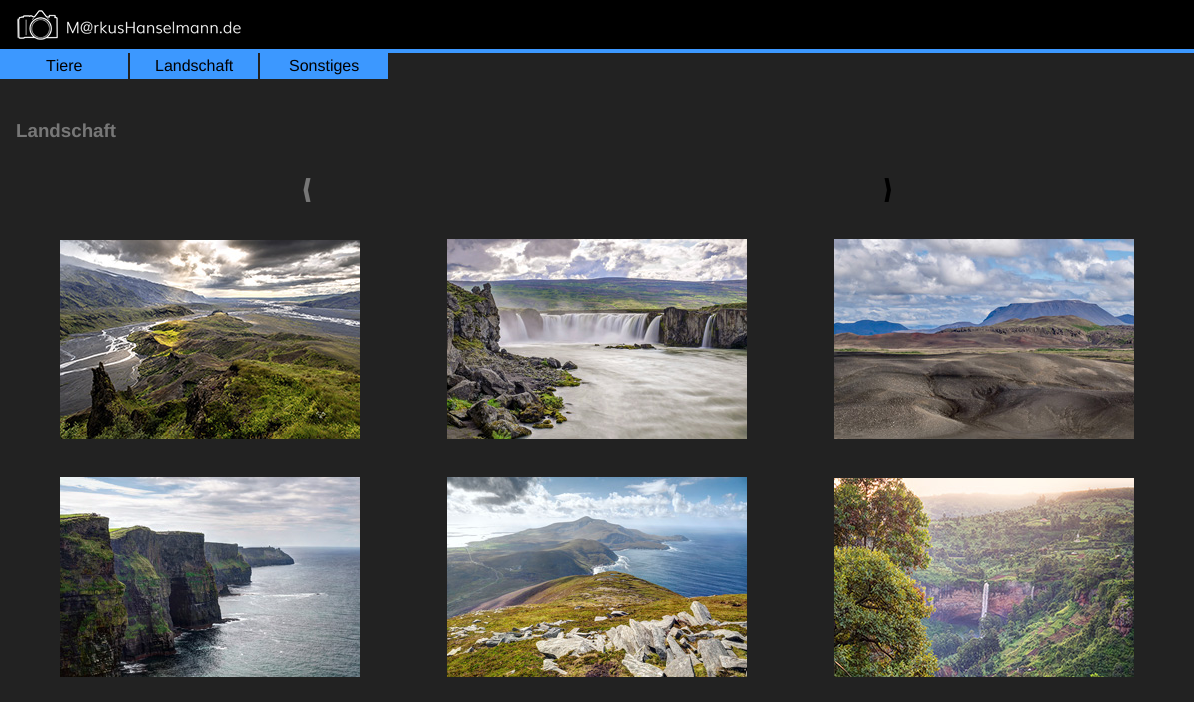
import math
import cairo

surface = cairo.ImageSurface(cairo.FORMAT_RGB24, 1194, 702)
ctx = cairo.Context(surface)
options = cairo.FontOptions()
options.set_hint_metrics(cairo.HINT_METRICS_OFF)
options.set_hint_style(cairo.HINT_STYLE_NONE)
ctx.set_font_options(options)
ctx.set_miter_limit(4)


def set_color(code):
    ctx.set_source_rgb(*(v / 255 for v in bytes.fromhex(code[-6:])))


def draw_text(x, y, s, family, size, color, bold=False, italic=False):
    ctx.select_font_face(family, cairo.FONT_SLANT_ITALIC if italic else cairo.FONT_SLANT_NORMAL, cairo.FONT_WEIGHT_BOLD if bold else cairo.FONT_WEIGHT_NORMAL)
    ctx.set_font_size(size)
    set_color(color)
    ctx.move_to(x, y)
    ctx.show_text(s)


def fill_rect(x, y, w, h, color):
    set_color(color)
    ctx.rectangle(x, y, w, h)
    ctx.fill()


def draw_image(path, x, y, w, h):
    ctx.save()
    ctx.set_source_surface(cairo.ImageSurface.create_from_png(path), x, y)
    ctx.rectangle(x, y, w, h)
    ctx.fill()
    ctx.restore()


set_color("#000000")
ctx.paint()
draw_image("assets/img1.png", 17, 10, 224, 30)
fill_rect(0, 49, 1194, 4, "#3c98ff")
fill_rect(0, 53, 1194, 649, "#222222")
fill_rect(0, 53, 128, 26, "#3c98ff")
draw_text(46, 71, "Tiere", "Liberation Sans", 16, "#000000")
fill_rect(130, 53, 128, 26, "#3c98ff")
draw_text(155, 71, "Landschaft", "Liberation Sans", 16, "#000000")
fill_rect(260, 53, 128, 26, "#3c98ff")
draw_text(289, 71, "Sonstiges", "Liberation Sans", 16, "#000000")
draw_text(16, 137, "Landschaft", "Liberation Sans", 18.75, "#777777", bold=True)
draw_image("assets/img2.png", 303, 178, 8, 24)
draw_image("assets/img3.png", 884, 178, 7, 24)
draw_image("assets/img4.png", 60, 240, 300, 199)
draw_image("assets/img5.png", 447, 239, 300, 200)
draw_image("assets/img6.png", 834, 239, 300, 200)
draw_image("assets/img7.png", 60, 477, 300, 200)
draw_image("assets/img8.png", 447, 477, 300, 200)
draw_image("assets/img9.png", 834, 478, 300, 199)
surface.write_to_png("output.png")
